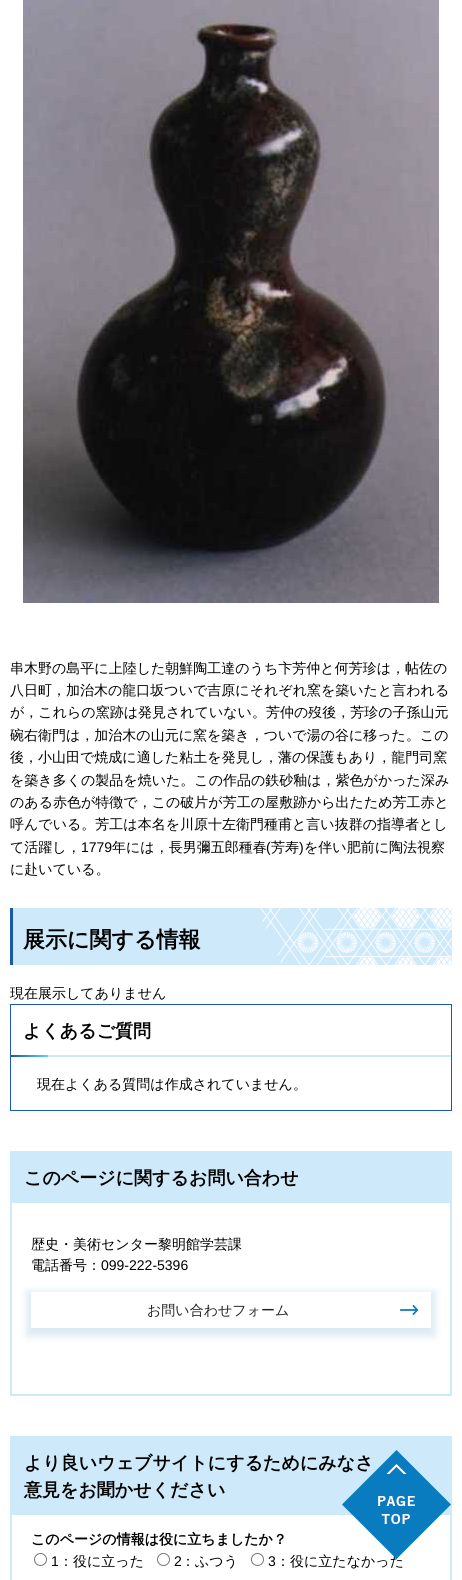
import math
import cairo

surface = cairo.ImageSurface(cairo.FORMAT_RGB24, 462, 1580)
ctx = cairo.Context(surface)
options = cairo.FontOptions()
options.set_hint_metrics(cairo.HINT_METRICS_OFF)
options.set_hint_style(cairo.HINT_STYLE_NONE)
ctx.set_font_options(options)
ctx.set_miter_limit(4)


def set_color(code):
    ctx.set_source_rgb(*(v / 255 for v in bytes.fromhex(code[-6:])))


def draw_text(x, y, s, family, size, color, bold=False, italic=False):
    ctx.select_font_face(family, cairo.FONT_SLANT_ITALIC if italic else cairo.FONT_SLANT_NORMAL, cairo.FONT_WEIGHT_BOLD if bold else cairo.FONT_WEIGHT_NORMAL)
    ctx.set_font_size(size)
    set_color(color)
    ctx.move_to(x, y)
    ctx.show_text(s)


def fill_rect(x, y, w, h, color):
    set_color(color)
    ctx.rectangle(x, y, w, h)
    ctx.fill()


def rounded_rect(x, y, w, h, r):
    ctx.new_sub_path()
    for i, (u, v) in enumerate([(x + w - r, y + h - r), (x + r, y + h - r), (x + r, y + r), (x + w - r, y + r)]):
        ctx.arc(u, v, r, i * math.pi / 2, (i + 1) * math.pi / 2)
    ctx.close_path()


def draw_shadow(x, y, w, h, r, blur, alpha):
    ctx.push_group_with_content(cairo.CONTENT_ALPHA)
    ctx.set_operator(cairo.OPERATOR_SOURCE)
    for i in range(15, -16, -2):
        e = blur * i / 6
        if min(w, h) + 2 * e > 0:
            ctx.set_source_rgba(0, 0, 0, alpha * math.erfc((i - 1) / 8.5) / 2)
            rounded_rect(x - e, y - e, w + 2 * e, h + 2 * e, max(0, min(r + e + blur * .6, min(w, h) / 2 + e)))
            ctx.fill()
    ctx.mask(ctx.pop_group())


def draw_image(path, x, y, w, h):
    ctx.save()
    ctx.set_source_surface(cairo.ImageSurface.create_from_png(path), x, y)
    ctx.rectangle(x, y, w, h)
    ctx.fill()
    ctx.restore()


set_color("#ffffff")
ctx.paint()
draw_image("assets/img1.png", 23, 0, 416, 603)
draw_text(10, 673, "串木野の島平に上陸した朝鮮陶工達のうち卞芳仲と何芳珍は，帖佐の", "WenQuanYi Zen Hei Medium", 14, "#000000")
draw_text(10, 695, "八日町，加治木の龍口坂ついで吉原にそれぞれ窯を築いたと言われる", "WenQuanYi Zen Hei Medium", 14, "#000000")
draw_text(10, 717, "が，これらの窯跡は発見されていない。芳仲の歿後，芳珍の子孫山元", "WenQuanYi Zen Hei Medium", 14, "#000000")
draw_text(10, 740, "碗右衛門は，加治木の山元に窯を築き，ついで湯の谷に移った。この", "WenQuanYi Zen Hei Medium", 14, "#000000")
draw_text(10, 762, "後，小山田で焼成に適した粘土を発見し，藩の保護もあり，龍門司窯", "WenQuanYi Zen Hei Medium", 14, "#000000")
draw_text(10, 785, "を築き多くの製品を焼いた。この作品の鉄砂釉は，紫色がかった深み", "WenQuanYi Zen Hei Medium", 14, "#000000")
draw_text(10, 807, "のある赤色が特徴で，この破片が芳工の屋敷跡から出たため芳工赤と", "WenQuanYi Zen Hei Medium", 14, "#000000")
draw_text(10, 829, "呼んでいる。芳工は本名を川原十左衛門種甫と言い抜群の指導者とし", "WenQuanYi Zen Hei Medium", 14, "#000000")
draw_text(10, 852, "て活躍し，", "WenQuanYi Zen Hei Medium", 14, "#000000")
draw_text(81, 852, "1779", "Liberation Sans", 14, "#000000")
draw_text(112, 852, "年には，長男彌五郎種春", "WenQuanYi Zen Hei Medium", 14, "#000000")
draw_text(266, 852, "(", "Liberation Sans", 14, "#000000")
draw_text(271, 852, "芳寿", "WenQuanYi Zen Hei Medium", 14, "#000000")
draw_text(299, 852, ")", "Liberation Sans", 14, "#000000")
draw_text(304, 852, "を伴い肥前に陶法視察", "WenQuanYi Zen Hei Medium", 14, "#000000")
draw_text(10, 874, "に赴いている。", "WenQuanYi Zen Hei Medium", 14, "#000000")
fill_rect(13, 908, 439, 57, "#cee9fa")
draw_image("assets/img2.png", 260, 908, 192, 57)
fill_rect(10, 908, 3, 57, "#1a58ab")
draw_text(23, 947, "展示に関する情報", "WenQuanYi Zen Hei", 22, "#000000", bold=True)
draw_text(10, 998, "現在展示してありません", "WenQuanYi Zen Hei Medium", 14, "#000000")
ctx.rectangle(10.5, 1004.5, 441, 106)
set_color("#1a59ab")
ctx.set_line_width(1)
ctx.stroke()
fill_rect(48, 1055, 403, 2, "#cee9f9")
draw_text(23, 1037, "よくあるご質問", "WenQuanYi Zen Hei", 18, "#000000", bold=True)
gradient = cairo.LinearGradient(11, 1056, 48, 1056)
gradient.add_color_stop_rgba(0, 0.102, 0.349, 0.671, 1)
gradient.add_color_stop_rgba(1, 0.353, 0.824, 0.98, 1)
ctx.set_source(gradient)
ctx.rectangle(11, 1055, 37, 2)
ctx.fill()
draw_text(37, 1089, "現在よくある質問は作成されていません。", "WenQuanYi Zen Hei Medium", 14, "#000000")
ctx.rectangle(11, 1152, 440, 243)
set_color("#cee9f9")
ctx.set_line_width(2)
ctx.stroke()
fill_rect(12, 1153, 438, 50, "#cee9f9")
draw_text(24, 1184, "このページに関するお問い合わせ", "WenQuanYi Zen Hei", 18, "#000000", bold=True)
draw_text(31, 1249, "歴史・美術センター黎明館学芸課", "WenQuanYi Zen Hei Medium", 14, "#000000")
draw_text(31, 1270, "電話番号：", "WenQuanYi Zen Hei Medium", 14, "#000000")
draw_text(101, 1270, "099-222-5396", "Liberation Sans", 14, "#000000")
ctx.save()
ctx.set_fill_rule(cairo.FILL_RULE_EVEN_ODD)
ctx.new_path()
ctx.move_to(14, 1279)
ctx.line_to(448, 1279)
ctx.line_to(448, 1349)
ctx.line_to(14, 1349)
ctx.close_path()
ctx.move_to(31, 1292)
ctx.line_to(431, 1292)
ctx.line_to(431, 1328)
ctx.line_to(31, 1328)
ctx.close_path()
ctx.clip()
set_color("#0769a2")
draw_shadow(27, 1292, 408, 44, 0, 4, 0.15)
ctx.restore()
draw_image("assets/img3.png", 400, 1305, 18, 10)
draw_text(147, 1315, "お問い合わせフォーム", "WenQuanYi Zen Hei Medium", 14, "#222222")
ctx.rectangle(11, 1437, 440, 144)
set_color("#cee9f9")
ctx.stroke()
fill_rect(12, 1438, 438, 77, "#cee9f9")
draw_text(24, 1469, "より良いウェブサイトにするためにみなさ", "WenQuanYi Zen Hei", 18, "#000000", bold=True)
draw_text(24, 1496, "意見をお聞かせください", "WenQuanYi Zen Hei", 18, "#000000", bold=True)
draw_text(31, 1544, "このページの情報は役に立ちましたか？", "WenQuanYi Zen Hei", 14, "#000000", bold=True)
ctx.new_path()
ctx.arc(40.5, 1559.5, 6, 0, 2 * math.pi)
set_color("#767676")
ctx.set_line_width(1)
ctx.stroke()
draw_text(51, 1566, "1", "Liberation Sans", 14, "#000000")
draw_text(59, 1566, "：役に立った", "WenQuanYi Zen Hei Medium", 14, "#000000")
ctx.new_path()
ctx.arc(163.5, 1559.5, 6, 0, 2 * math.pi)
set_color("#767676")
ctx.stroke()
draw_text(174, 1566, "2", "Liberation Sans", 14, "#000000")
draw_text(181, 1566, "：ふつう", "WenQuanYi Zen Hei Medium", 14, "#000000")
ctx.new_path()
ctx.arc(257.5, 1559.5, 6, 0, 2 * math.pi)
set_color("#767676")
ctx.stroke()
draw_text(268, 1566, "3", "Liberation Sans", 14, "#000000")
draw_text(276, 1566, "：役に立たなかった", "WenQuanYi Zen Hei Medium", 14, "#000000")
draw_image("assets/img4.png", 342, 1450, 109, 109)
surface.write_to_png("output.png")
